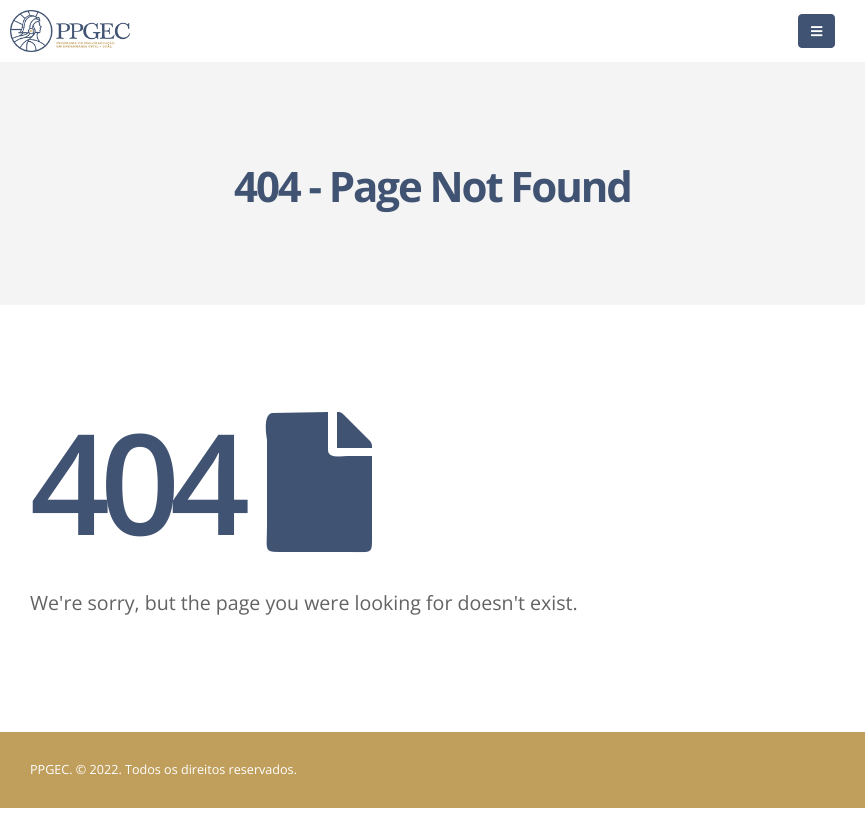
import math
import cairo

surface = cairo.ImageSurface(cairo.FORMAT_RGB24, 865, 840)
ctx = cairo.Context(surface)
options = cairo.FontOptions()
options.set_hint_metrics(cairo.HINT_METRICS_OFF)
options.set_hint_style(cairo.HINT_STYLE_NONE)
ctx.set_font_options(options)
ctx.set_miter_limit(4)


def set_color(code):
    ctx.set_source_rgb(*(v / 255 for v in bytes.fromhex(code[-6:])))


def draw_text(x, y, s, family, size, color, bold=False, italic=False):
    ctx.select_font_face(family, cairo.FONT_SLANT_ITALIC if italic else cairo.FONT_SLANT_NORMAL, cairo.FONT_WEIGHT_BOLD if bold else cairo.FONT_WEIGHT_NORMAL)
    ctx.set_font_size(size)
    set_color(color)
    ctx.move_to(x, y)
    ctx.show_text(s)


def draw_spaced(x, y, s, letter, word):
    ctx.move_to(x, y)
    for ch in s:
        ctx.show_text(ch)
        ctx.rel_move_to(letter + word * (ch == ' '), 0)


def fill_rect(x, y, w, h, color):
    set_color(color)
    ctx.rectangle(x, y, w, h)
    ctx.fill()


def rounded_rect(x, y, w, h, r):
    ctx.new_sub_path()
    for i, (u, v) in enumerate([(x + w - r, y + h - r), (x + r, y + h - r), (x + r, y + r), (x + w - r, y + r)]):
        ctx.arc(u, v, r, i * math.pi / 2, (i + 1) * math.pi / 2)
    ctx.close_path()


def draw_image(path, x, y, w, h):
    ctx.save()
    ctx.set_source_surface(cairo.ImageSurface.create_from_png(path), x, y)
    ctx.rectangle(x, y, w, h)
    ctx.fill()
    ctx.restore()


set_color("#ffffff")
ctx.paint()
draw_image("assets/img1.png", 10, 10, 120, 42)
set_color("#415372")
rounded_rect(798, 14, 37, 34, 4)
ctx.fill()
draw_image("assets/img2.png", 811, 26, 12, 11)
fill_rect(0, 62, 865, 243, "#f4f4f4")
ctx.select_font_face("Open Sans", cairo.FONT_SLANT_NORMAL, cairo.FONT_WEIGHT_BOLD)
ctx.set_font_size(42)
set_color("#415372")
draw_spaced(234, 202, "404 - Page Not Found", -2.1, 0)
ctx.select_font_face("Open Sans SemiBold")
ctx.set_font_size(140)
draw_spaced(30, 535, "404", -10, 0)
ctx.new_path()
ctx.move_to(328, 450)
ctx.curve_to(328, 459, 342, 456, 347, 456)
ctx.line_to(372, 456)
ctx.line_to(372, 531)
ctx.curve_to(372, 555, 374, 552, 350, 552)
ctx.line_to(289, 552)
ctx.curve_to(262, 552, 267, 554, 267, 525)
ctx.line_to(267, 440)
ctx.curve_to(267, 439, 262, 415, 272, 413)
ctx.line_to(328, 412)
ctx.close_path()
ctx.move_to(372, 446)
ctx.line_to(372, 448)
ctx.line_to(337, 448)
ctx.line_to(337, 412)
ctx.line_to(339, 412)
ctx.curve_to(340, 412, 342, 413, 343, 414)
ctx.line_to(370, 441)
ctx.curve_to(371, 442, 372, 444, 372, 446)
ctx.close_path()
ctx.fill()
draw_text(30, 610, "We're sorry, but the page you were looking for doesn't exist.", "Open Sans", 19.6, "#636363")
fill_rect(0, 732, 865, 76, "#c09e5b")
draw_text(30, 774, "PPGEC. © 2022. Todos os direitos reservados.", "Open Sans", 12.6, "#ffffff")
surface.write_to_png("output.png")
